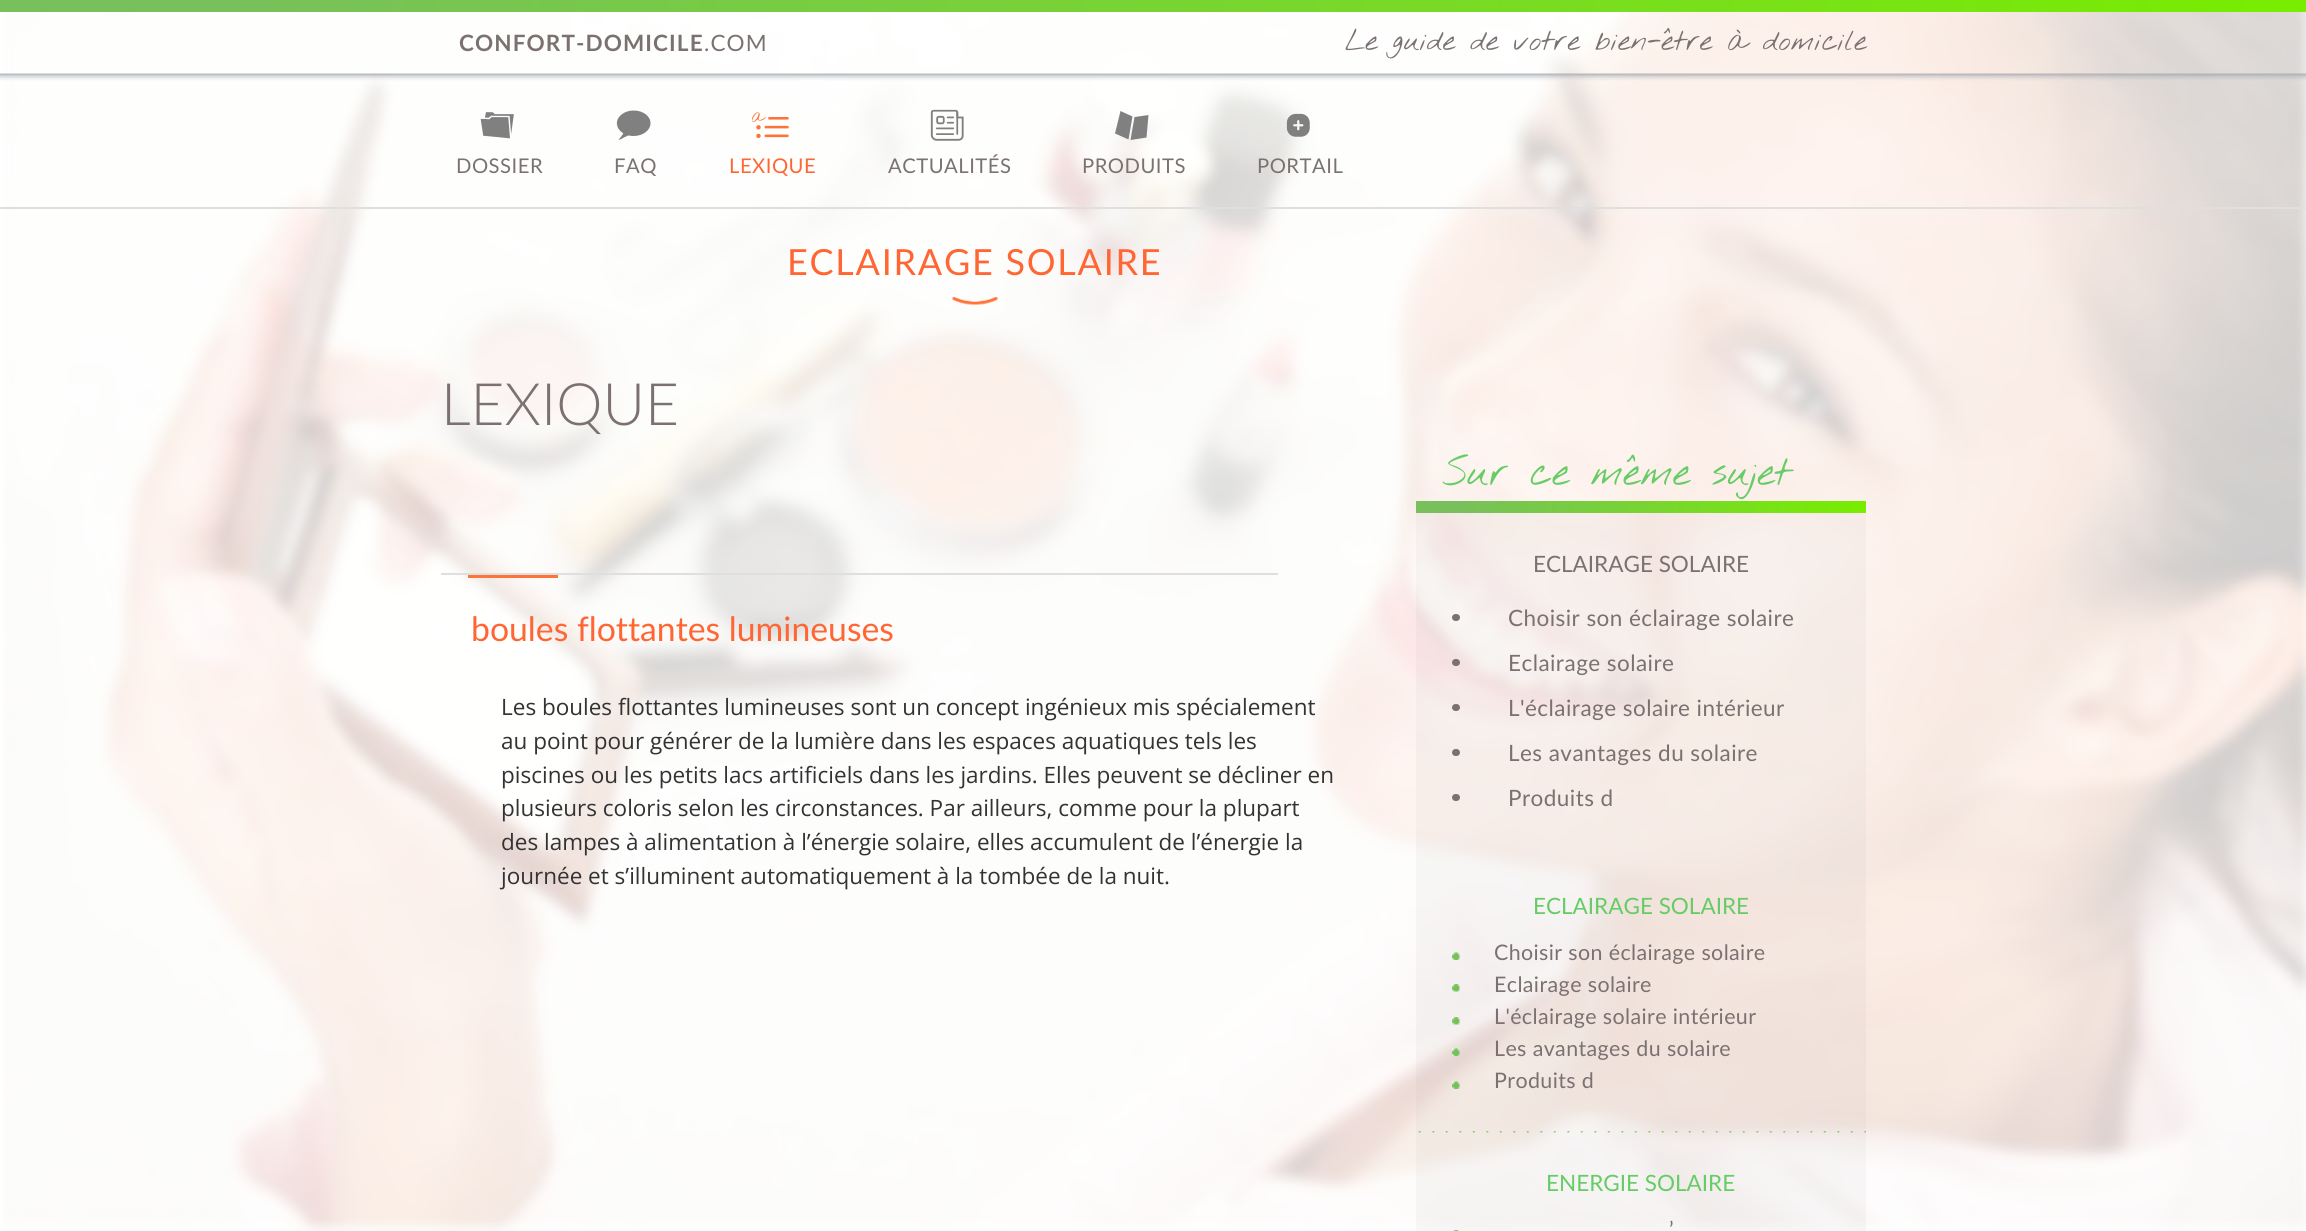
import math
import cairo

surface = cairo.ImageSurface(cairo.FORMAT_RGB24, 2306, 1231)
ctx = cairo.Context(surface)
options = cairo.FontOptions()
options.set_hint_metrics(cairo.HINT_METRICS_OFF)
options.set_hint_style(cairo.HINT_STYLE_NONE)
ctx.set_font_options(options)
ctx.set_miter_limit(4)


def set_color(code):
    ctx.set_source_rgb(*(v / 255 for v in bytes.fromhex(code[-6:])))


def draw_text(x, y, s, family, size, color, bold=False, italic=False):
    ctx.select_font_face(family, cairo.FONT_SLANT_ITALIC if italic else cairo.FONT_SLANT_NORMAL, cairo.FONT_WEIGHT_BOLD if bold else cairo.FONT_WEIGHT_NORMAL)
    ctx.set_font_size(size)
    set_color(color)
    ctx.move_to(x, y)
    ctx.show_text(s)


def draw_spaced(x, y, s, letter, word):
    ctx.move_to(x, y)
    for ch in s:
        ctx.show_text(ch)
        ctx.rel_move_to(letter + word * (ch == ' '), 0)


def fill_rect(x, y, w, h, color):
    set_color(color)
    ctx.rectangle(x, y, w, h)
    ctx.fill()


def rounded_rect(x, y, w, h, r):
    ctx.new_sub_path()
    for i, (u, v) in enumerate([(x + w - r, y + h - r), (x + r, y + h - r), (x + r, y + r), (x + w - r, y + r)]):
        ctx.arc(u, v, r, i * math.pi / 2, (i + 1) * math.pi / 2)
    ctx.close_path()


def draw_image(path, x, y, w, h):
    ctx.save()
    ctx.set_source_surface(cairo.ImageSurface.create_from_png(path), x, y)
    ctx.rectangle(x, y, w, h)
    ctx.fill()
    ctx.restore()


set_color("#ffffff")
ctx.paint()
draw_image("assets/img1.png", 3, 12, 2303, 1219)
draw_image("assets/img2.png", 0, 73, 2306, 8)
gradient = cairo.LinearGradient(0, 6, 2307, 6)
gradient.add_color_stop_rgba(0.1, 0.471, 0.753, 0.357, 1)
gradient.add_color_stop_rgba(1, 0.471, 0.929, 0, 1)
ctx.set_source(gradient)
ctx.rectangle(0, 0, 2306, 12)
ctx.fill()
ctx.select_font_face("Lato", cairo.FONT_SLANT_NORMAL, cairo.FONT_WEIGHT_BOLD)
ctx.set_font_size(22.5)
set_color("#7c7171")
draw_spaced(459, 51, "CONFORT-DOMICILE", 1.1, 0)
ctx.select_font_face("Lato")
draw_spaced(704, 51, ".COM", 1.1, 0)
draw_text(1345, 50, "Le guide de votre bien-être à domicile", "Nothing You Could Do", 29.25, "#7c7171")
draw_image("assets/img3.png", 480, 112, 34, 27)
ctx.select_font_face("Lato")
ctx.set_font_size(20.25)
draw_spaced(456, 173, "DOSSIER", 0.5, 0)
draw_image("assets/img4.png", 616, 110, 35, 30)
draw_spaced(614, 173, "FAQ", 0.5, 0)
draw_image("assets/img5.png", 752, 112, 37, 27)
set_color("#ff6633")
draw_spaced(729, 173, "LEXIQUE", 0.5, 0)
draw_image("assets/img6.png", 930, 109, 34, 32)
set_color("#7c7171")
draw_spaced(888, 173, "ACTUALITÉS", 0.5, 0)
set_color("#808080")
ctx.new_path()
ctx.move_to(1134.5, 117)
ctx.line_to(1130.5, 140)
ctx.line_to(1146.5, 137.5)
ctx.line_to(1148.5, 115)
ctx.close_path()
ctx.fill()
ctx.new_path()
ctx.move_to(1120.5, 111)
ctx.line_to(1115, 133.5)
ctx.line_to(1128.5, 139.5)
ctx.line_to(1132.5, 116.5)
ctx.close_path()
ctx.fill()
set_color("#7c7171")
draw_spaced(1082, 173, "PRODUITS", 0.5, 0)
draw_image("assets/img7.png", 1286, 113, 24, 24)
draw_spaced(1257, 173, "PORTAIL", 0.5, 0)
fill_rect(0, 207, 2306, 2, "#dfdfdf")
ctx.set_font_size(36)
set_color("#ff6633")
draw_spaced(787, 275, "ECLAIRAGE SOLAIRE", 1.75, 0)
draw_image("assets/img8.png", 952, 297, 46, 8)
draw_text(441, 425, "LEXIQUE", "Lato Light", 58.5, "#7c7171")
fill_rect(468, 575, 90, 3, "#ff7338")
fill_rect(441, 573, 837, 2, "#dfdfdf")
draw_text(471, 641, "boules flottantes lumineuses", "Lato", 33.75, "#ff6633")
draw_text(501, 715, "Les boules flottantes lumineuses sont un concept ingénieux mis spécialement", "Open Sans", 22.5, "#333333")
draw_text(501, 749, "au point pour générer de la lumière dans les espaces aquatiques tels les", "Open Sans", 22.5, "#333333")
draw_text(501, 783, "piscines ou les petits lacs artificiels dans les jardins. Elles peuvent se décliner en", "Open Sans", 22.5, "#333333")
draw_text(501, 816, "plusieurs coloris selon les circonstances. Par ailleurs, comme pour la plupart", "Open Sans", 22.5, "#333333")
draw_text(501, 850, "des lampes à alimentation à l’énergie solaire, elles accumulent de l’énergie la", "Open Sans", 22.5, "#333333")
draw_text(501, 884, "journée et s’illuminent automatiquement à la tombée de la nuit.", "Open Sans", 22.5, "#333333")
draw_text(1442, 485, "Sur ce même sujet", "Nothing You Could Do", 40.5, "#66cc66")
ctx.set_source_rgba(0.533, 0.533, 0.533, 0.06)
ctx.rectangle(1416, 513, 450, 342)
ctx.fill()
gradient = cairo.LinearGradient(1416, 507, 1866, 507)
gradient.add_color_stop_rgba(0.1, 0.471, 0.753, 0.357, 1)
gradient.add_color_stop_rgba(1, 0.471, 0.929, 0, 1)
ctx.set_source(gradient)
ctx.rectangle(1416, 501, 450, 12)
ctx.fill()
draw_text(1533, 572, "ECLAIRAGE SOLAIRE", "Lato", 22.5, "#7c7171")
rounded_rect(1452, 614, 8, 7, 3.5)
ctx.fill()
draw_spaced(1508, 626, "Choisir son éclairage solaire", 0.45, 0)
rounded_rect(1452, 659, 8, 7, 3.5)
ctx.fill()
draw_spaced(1508, 671, "Eclairage solaire", 0.45, 0)
rounded_rect(1452, 704, 8, 7, 3.5)
ctx.fill()
draw_spaced(1508, 716, "L'éclairage solaire intérieur", 0.45, 0)
rounded_rect(1452, 749, 8, 7, 3.5)
ctx.fill()
draw_spaced(1508, 761, "Les avantages du solaire", 0.45, 0)
rounded_rect(1452, 794, 8, 7, 3.5)
ctx.fill()
draw_spaced(1508, 806, "Produits d", 0.45, 0)
ctx.set_source_rgba(0.533, 0.533, 0.533, 0.06)
ctx.rectangle(1416, 855, 450, 376)
ctx.fill()
draw_text(1533, 914, "ECLAIRAGE SOLAIRE", "Lato", 22.5, "#66cc66")
draw_image("assets/img9.png", 1418, 1131, 448, 2)
draw_image("assets/img10.png", 1452, 952, 8, 8)
ctx.set_font_size(21.4)
set_color("#7c7171")
draw_spaced(1494, 960, "Choisir son éclairage solaire", 0.4, 0)
draw_image("assets/img11.png", 1452, 984, 8, 8)
draw_spaced(1494, 992, "Eclairage solaire", 0.4, 0)
draw_image("assets/img12.png", 1452, 1017, 8, 8)
draw_spaced(1494, 1024, "L'éclairage solaire intérieur", 0.4, 0)
draw_image("assets/img13.png", 1452, 1048, 8, 8)
draw_spaced(1494, 1056, "Les avantages du solaire", 0.4, 0)
draw_image("assets/img14.png", 1452, 1081, 8, 8)
draw_spaced(1494, 1088, "Produits d", 0.4, 0)
draw_text(1546, 1191, "ENERGIE SOLAIRE", "Lato", 22.5, "#66cc66")
draw_image("assets/img15.png", 1452, 1230, 8, 1)
ctx.set_font_size(21.4)
set_color("#7c7171")
draw_spaced(1669, 1237, "’", 0.4, 0)
surface.write_to_png("output.png")
